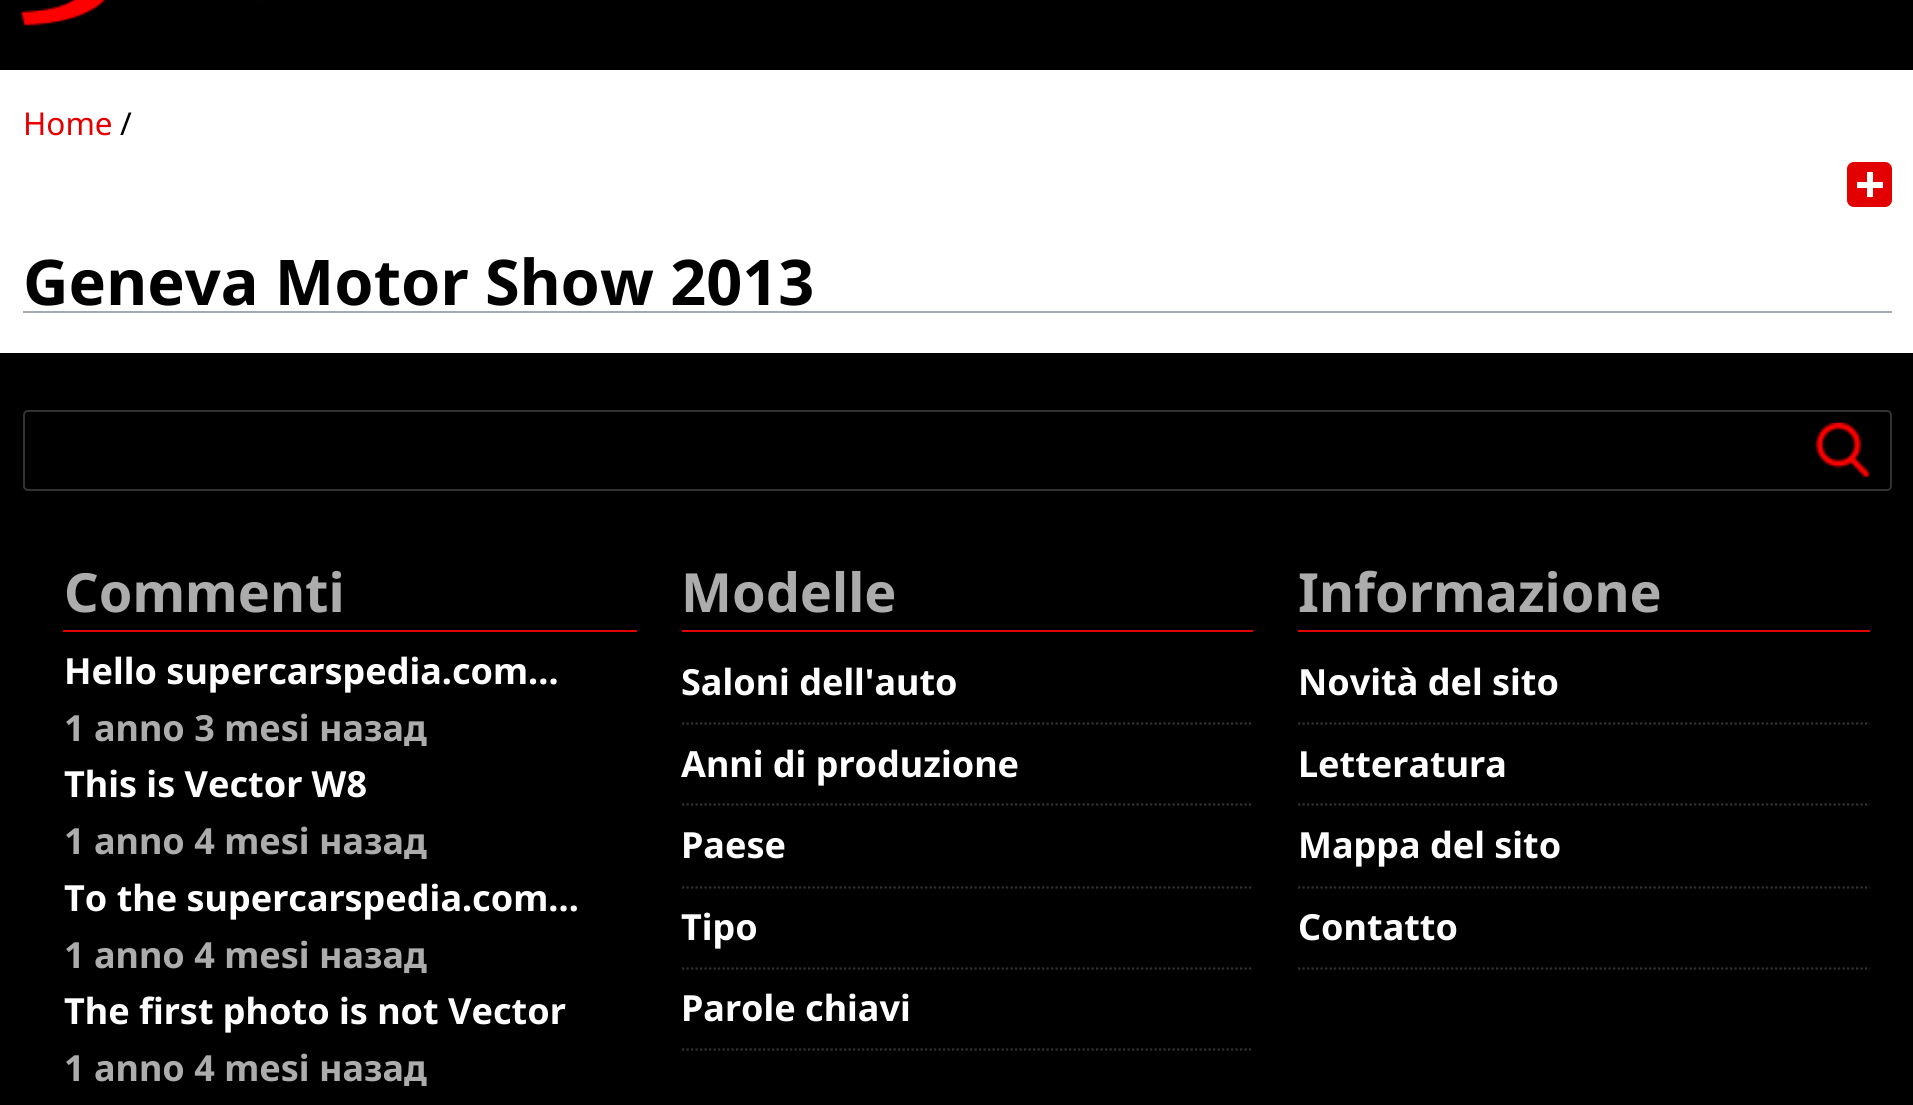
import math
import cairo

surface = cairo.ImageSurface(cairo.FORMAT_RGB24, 1913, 1105)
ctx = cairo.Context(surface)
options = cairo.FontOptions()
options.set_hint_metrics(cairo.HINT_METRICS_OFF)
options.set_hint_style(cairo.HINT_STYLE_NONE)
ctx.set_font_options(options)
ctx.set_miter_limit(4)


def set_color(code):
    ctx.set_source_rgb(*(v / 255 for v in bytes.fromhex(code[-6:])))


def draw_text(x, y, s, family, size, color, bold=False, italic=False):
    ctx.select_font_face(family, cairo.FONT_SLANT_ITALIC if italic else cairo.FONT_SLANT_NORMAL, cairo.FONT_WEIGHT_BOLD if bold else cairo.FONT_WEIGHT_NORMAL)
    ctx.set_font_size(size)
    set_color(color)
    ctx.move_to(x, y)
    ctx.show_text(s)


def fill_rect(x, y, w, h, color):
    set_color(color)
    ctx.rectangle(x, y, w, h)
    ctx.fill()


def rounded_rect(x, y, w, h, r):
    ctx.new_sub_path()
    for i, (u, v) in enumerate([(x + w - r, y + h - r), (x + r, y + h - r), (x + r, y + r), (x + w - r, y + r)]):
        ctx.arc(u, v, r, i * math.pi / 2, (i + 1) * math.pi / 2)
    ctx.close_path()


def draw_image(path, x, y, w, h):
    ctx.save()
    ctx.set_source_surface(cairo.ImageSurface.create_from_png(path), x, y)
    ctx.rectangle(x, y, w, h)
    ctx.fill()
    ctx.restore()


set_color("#000000")
ctx.paint()
draw_image("assets/img1.png", 20, 0, 244, 26)
fill_rect(0, 70, 1913, 283, "#ffffff")
draw_text(23, 135, "Home", "Noto Sans", 31.5, "#e30000")
draw_text(120, 135, "/", "Noto Sans", 31.5, "#000000")
set_color("#e30000")
rounded_rect(1847, 162, 45, 45, 7)
ctx.fill()
fill_rect(1867, 172, 6, 25, "#ffffff")
fill_rect(1857, 182, 26, 6, "#ffffff")
fill_rect(23, 311, 1869, 2, "#a2a9b1")
draw_text(23, 305, "Geneva Motor Show 2013", "Noto Sans", 63, "#000000", bold=True)
rounded_rect(24, 411, 1867, 79, 4)
set_color("#323232")
ctx.stroke()
draw_image("assets/img2.png", 1815, 422, 55, 55)
fill_rect(63, 630, 574, 2, "#e30000")
draw_text(64, 612, "Commenti", "Noto Sans", 54, "#acacac", bold=True)
draw_text(64, 684, "Hello supercarspedia.com…", "Noto Sans", 36, "#ffffff", bold=True)
draw_text(64, 741, "1 anno 3 mesi назад", "Noto Sans", 36, "#acacac", bold=True)
draw_text(64, 797, "This is Vector W8", "Noto Sans", 36, "#ffffff", bold=True)
draw_text(64, 854, "1 anno 4 mesi назад", "Noto Sans", 36, "#acacac", bold=True)
draw_text(64, 911, "To the supercarspedia.com…", "Noto Sans", 36, "#ffffff", bold=True)
draw_text(64, 968, "1 anno 4 mesi назад", "Noto Sans", 36, "#acacac", bold=True)
draw_text(64, 1024, "The first photo is not Vector", "Noto Sans", 36, "#ffffff", bold=True)
draw_text(64, 1081, "1 anno 4 mesi назад", "Noto Sans", 36, "#acacac", bold=True)
fill_rect(682, 630, 571, 2, "#e30000")
draw_text(681, 612, "Modelle", "Noto Sans", 54, "#acacac", bold=True)
ctx.new_path()
ctx.move_to(682, 723.5)
ctx.line_to(1253, 723.5)
set_color("#323232")
ctx.set_line_width(2.2)
ctx.set_dash([2.25, 2.25])
ctx.stroke()
draw_text(681, 695, "Saloni dell'auto", "Noto Sans", 36, "#ffffff", bold=True)
ctx.new_path()
ctx.move_to(682, 804.5)
ctx.line_to(1253, 804.5)
set_color("#323232")
ctx.stroke()
draw_text(681, 777, "Anni di produzione", "Noto Sans", 36, "#ffffff", bold=True)
ctx.new_path()
ctx.move_to(682, 887.5)
ctx.line_to(1253, 887.5)
set_color("#323232")
ctx.stroke()
draw_text(681, 858, "Paese", "Noto Sans", 36, "#ffffff", bold=True)
ctx.new_path()
ctx.move_to(682, 968.5)
ctx.line_to(1253, 968.5)
set_color("#323232")
ctx.stroke()
draw_text(681, 940, "Tipo", "Noto Sans", 36, "#ffffff", bold=True)
ctx.new_path()
ctx.move_to(682, 1049.5)
ctx.line_to(1253, 1049.5)
set_color("#323232")
ctx.stroke()
draw_text(681, 1021, "Parole chiavi", "Noto Sans", 36, "#ffffff", bold=True)
fill_rect(1298, 630, 572, 2, "#e30000")
draw_text(1298, 612, "Informazione", "Noto Sans", 54, "#acacac", bold=True)
ctx.new_path()
ctx.move_to(1298, 723.5)
ctx.line_to(1870, 723.5)
set_color("#323232")
ctx.stroke()
draw_text(1298, 695, "Novità del sito", "Noto Sans", 36, "#ffffff", bold=True)
ctx.new_path()
ctx.move_to(1298, 804.5)
ctx.line_to(1870, 804.5)
set_color("#323232")
ctx.stroke()
draw_text(1298, 777, "Letteratura", "Noto Sans", 36, "#ffffff", bold=True)
ctx.new_path()
ctx.move_to(1298, 887.5)
ctx.line_to(1870, 887.5)
set_color("#323232")
ctx.stroke()
draw_text(1298, 858, "Mappa del sito", "Noto Sans", 36, "#ffffff", bold=True)
ctx.new_path()
ctx.move_to(1298, 968.5)
ctx.line_to(1870, 968.5)
set_color("#323232")
ctx.stroke()
draw_text(1298, 940, "Contatto", "Noto Sans", 36, "#ffffff", bold=True)
surface.write_to_png("output.png")
